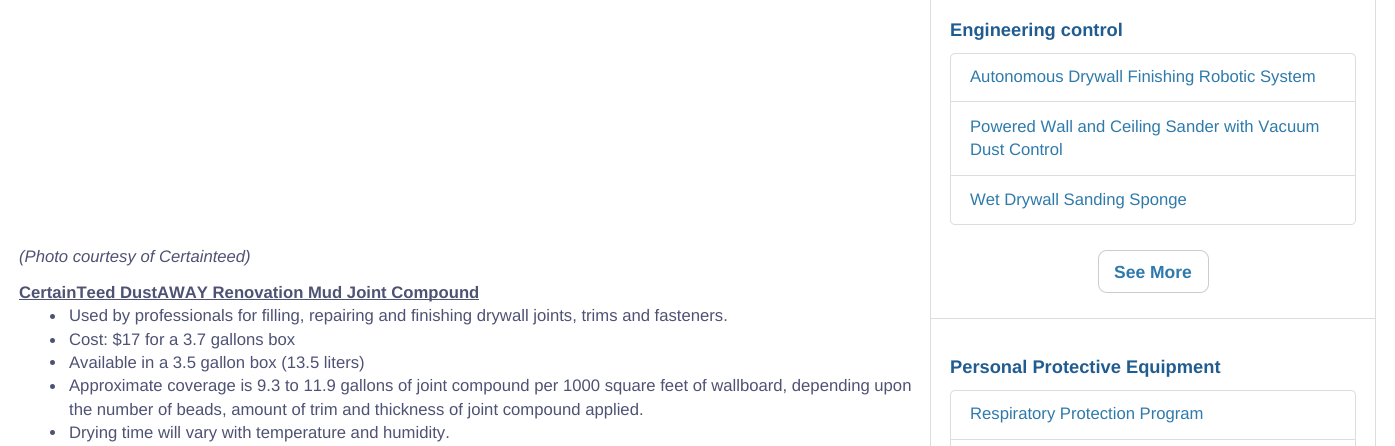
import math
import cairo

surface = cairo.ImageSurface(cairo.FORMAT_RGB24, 1395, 446)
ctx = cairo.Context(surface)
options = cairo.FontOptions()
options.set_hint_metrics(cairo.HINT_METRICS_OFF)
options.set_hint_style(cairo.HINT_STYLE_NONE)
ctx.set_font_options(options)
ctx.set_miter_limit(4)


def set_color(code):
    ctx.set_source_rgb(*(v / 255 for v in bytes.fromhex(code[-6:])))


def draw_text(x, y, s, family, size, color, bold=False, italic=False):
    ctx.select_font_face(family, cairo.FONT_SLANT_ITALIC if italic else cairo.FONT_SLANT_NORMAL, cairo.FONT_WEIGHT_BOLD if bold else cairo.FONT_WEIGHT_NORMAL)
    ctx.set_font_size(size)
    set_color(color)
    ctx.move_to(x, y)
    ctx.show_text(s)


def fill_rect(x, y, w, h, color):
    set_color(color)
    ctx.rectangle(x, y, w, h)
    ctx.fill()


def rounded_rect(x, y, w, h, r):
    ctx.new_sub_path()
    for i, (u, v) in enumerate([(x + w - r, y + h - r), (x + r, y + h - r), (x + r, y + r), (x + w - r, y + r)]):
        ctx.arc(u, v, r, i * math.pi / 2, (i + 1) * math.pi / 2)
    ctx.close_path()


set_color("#ffffff")
ctx.paint()
draw_text(19, 262, "(Photo courtesy of Certainteed)", "Liberation Sans", 16.67, "#4e5273", italic=True)
fill_rect(19, 299, 460, 1, "#4e5273")
draw_text(19, 298, "CertainTeed DustAWAY Renovation Mud Joint Compound", "Liberation Sans", 16.67, "#4e5273", bold=True)
ctx.new_path()
ctx.arc(52.5, 316.5, 2.5, 0, 2 * math.pi)
ctx.fill()
draw_text(69, 321, "Used by professionals for filling, repairing and finishing drywall joints, trims and fasteners.", "Liberation Sans", 16.67, "#4e5273")
ctx.new_path()
ctx.arc(52.5, 340.5, 2.5, 0, 2 * math.pi)
ctx.fill()
draw_text(69, 345, "Cost: $17 for a 3.7 gallons box", "Liberation Sans", 16.67, "#4e5273")
ctx.new_path()
ctx.arc(52.5, 362.5, 2.5, 0, 2 * math.pi)
ctx.fill()
draw_text(69, 368, "Available in a 3.5 gallon box (13.5 liters)", "Liberation Sans", 16.67, "#4e5273")
ctx.new_path()
ctx.arc(52.5, 386.5, 2.5, 0, 2 * math.pi)
ctx.fill()
draw_text(69, 391, "Approximate coverage is 9.3 to 11.9 gallons of joint compound per 1000 square feet of wallboard, depending upon", "Liberation Sans", 16.67, "#4e5273")
draw_text(69, 415, "the number of beads, amount of trim and thickness of joint compound applied.", "Liberation Sans", 16.67, "#4e5273")
ctx.new_path()
ctx.arc(52.5, 432.5, 2.5, 0, 2 * math.pi)
ctx.fill()
draw_text(69, 438, "Drying time will vary with temperature and humidity.", "Liberation Sans", 16.67, "#4e5273")
ctx.rectangle(930.5, -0.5, 445, 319)
set_color("#dddddd")
ctx.set_line_width(1)
ctx.stroke()
draw_text(950, 36, "Engineering control", "Liberation Sans", 18.3, "#215c90", bold=True)
ctx.new_path()
ctx.move_to(955, 53.5)
ctx.line_to(1351, 53.5)
ctx.curve_to(1353.5, 53.5, 1355.5, 55.5, 1355.5, 58)
ctx.line_to(1355.5, 102.5)
ctx.line_to(950.5, 102.5)
ctx.line_to(950.5, 58)
ctx.curve_to(950.5, 55.5, 952.5, 53.5, 955, 53.5)
ctx.close_path()
set_color("#dddddd")
ctx.stroke()
draw_text(970, 82, "Autonomous Drywall Finishing Robotic System", "Liberation Sans", 16.67, "#2e7aab")
fill_rect(951, 102, 404, 1, "#ffffff")
ctx.rectangle(950.5, 101.5, 405, 74)
set_color("#dddddd")
ctx.stroke()
draw_text(970, 132, "Powered Wall and Ceiling Sander with Vacuum", "Liberation Sans", 16.67, "#2e7aab")
draw_text(970, 155, "Dust Control", "Liberation Sans", 16.67, "#2e7aab")
set_color("#ffffff")
ctx.new_path()
ctx.move_to(950.5, 175.5)
ctx.line_to(1355.5, 175.5)
ctx.line_to(1355.5, 220)
ctx.curve_to(1355.5, 222.5, 1353.5, 224.5, 1351, 224.5)
ctx.line_to(955, 224.5)
ctx.curve_to(952.5, 224.5, 950.5, 222.5, 950.5, 220)
ctx.close_path()
ctx.fill_preserve()
set_color("#dddddd")
ctx.stroke()
draw_text(970, 205, "Wet Drywall Sanding Sponge", "Liberation Sans", 16.67, "#2e7aab")
rounded_rect(1098.5, 250.5, 110, 42, 8.5)
set_color("#cccccc")
ctx.stroke()
draw_text(1114, 278, "See More", "Liberation Sans", 17.5, "#2e7aab", bold=True)
ctx.rectangle(930.5, 318.5, 445, 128)
set_color("#dddddd")
ctx.stroke()
draw_text(950, 373, "Personal Protective Equipment", "Liberation Sans", 18.3, "#215c90", bold=True)
ctx.new_path()
ctx.move_to(955, 390.5)
ctx.line_to(1351, 390.5)
ctx.curve_to(1353.5, 390.5, 1355.5, 392.5, 1355.5, 395)
ctx.line_to(1355.5, 439.5)
ctx.line_to(950.5, 439.5)
ctx.line_to(950.5, 395)
ctx.curve_to(950.5, 392.5, 952.5, 390.5, 955, 390.5)
ctx.close_path()
set_color("#dddddd")
ctx.stroke()
draw_text(970, 419, "Respiratory Protection Program", "Liberation Sans", 16.67, "#2e7aab")
ctx.rectangle(950.5, 439.5, 405, 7)
set_color("#dddddd")
ctx.stroke()
surface.write_to_png("output.png")
